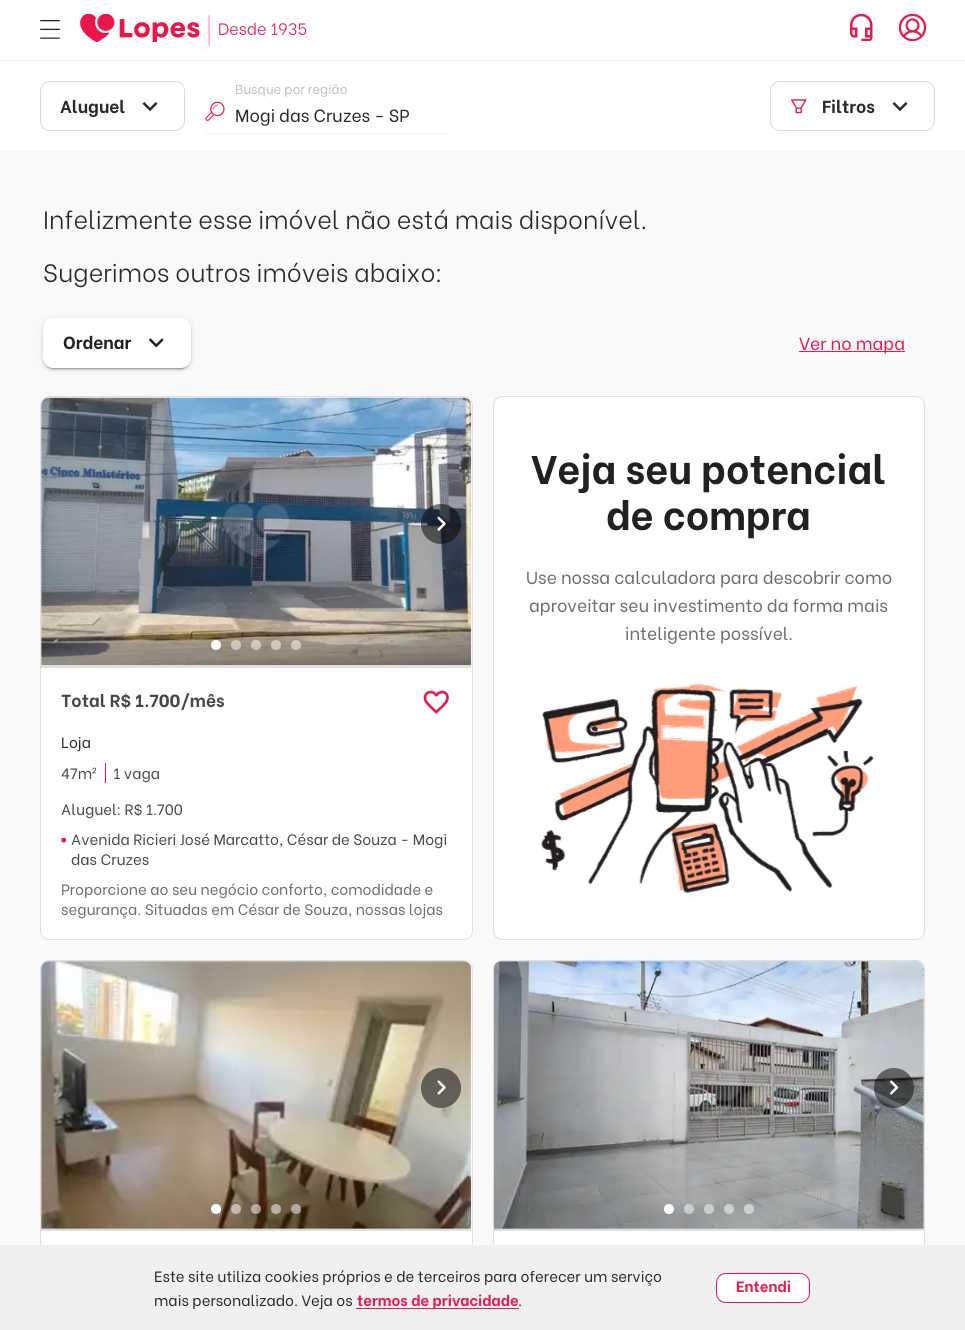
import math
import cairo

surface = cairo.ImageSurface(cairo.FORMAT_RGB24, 965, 1330)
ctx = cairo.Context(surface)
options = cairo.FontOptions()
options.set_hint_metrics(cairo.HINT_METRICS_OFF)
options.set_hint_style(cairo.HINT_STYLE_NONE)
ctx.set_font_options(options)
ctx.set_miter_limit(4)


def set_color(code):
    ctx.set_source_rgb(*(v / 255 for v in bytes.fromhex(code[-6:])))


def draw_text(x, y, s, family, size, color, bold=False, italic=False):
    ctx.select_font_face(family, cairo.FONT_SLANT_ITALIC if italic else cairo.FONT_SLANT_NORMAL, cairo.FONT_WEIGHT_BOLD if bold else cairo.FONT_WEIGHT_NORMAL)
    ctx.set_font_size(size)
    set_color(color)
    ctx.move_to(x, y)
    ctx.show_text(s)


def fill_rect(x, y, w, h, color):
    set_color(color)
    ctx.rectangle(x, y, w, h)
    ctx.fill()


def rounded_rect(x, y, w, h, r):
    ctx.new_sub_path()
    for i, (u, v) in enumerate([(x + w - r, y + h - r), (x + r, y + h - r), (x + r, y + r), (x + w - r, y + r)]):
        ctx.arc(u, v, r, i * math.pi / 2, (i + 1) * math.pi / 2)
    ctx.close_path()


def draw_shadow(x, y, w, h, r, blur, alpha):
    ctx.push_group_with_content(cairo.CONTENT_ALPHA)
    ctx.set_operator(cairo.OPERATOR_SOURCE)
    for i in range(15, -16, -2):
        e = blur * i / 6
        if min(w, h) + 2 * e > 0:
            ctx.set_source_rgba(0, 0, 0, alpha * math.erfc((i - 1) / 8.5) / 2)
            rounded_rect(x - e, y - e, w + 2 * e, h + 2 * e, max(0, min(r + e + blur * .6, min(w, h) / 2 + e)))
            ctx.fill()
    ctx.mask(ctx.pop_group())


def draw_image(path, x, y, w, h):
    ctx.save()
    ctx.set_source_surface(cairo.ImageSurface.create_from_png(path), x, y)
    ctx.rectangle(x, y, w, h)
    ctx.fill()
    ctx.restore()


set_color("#ffffff")
ctx.paint()
fill_rect(0, 60, 965, 1, "#f2f2f2")
draw_image("assets/img1.png", 40, 20, 20, 19)
draw_image("assets/img2.png", 80, 14, 227, 32)
draw_image("assets/img3.png", 850, 14, 23, 27)
draw_image("assets/img4.png", 899, 14, 27, 27)
rounded_rect(40.5, 81.5, 144, 49, 9.5)
set_color("#dbdbdb")
ctx.set_line_width(1)
ctx.stroke()
draw_text(60, 113, "Aluguel", "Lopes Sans", 17.5, "#2a2a2a", bold=True)
draw_image("assets/img5.png", 142, 102, 16, 10)
draw_image("assets/img6.png", 205, 101, 20, 20)
draw_text(235, 94, "Busque por região", "Lopes Sans", 13.1, "#bfbfbf")
draw_text(235, 122, "Mogi das Cruzes - SP", "Lopes Sans", 17.5, "#2a2a2a")
fill_rect(205, 133, 243, 1, "#f2f2f2")
rounded_rect(770.5, 81.5, 164, 49, 9.5)
set_color("#dbdbdb")
ctx.stroke()
draw_image("assets/img7.png", 791, 99, 16, 15)
draw_text(822, 113, "Filtros", "Lopes Sans", 17.5, "#2a2a2a", bold=True)
draw_image("assets/img5.png", 892, 102, 16, 10)
fill_rect(0, 151, 965, 1094, "#f9f9f9")
draw_text(43, 229, "Infelizmente esse imóvel não está mais disponível.", "Lopes Sans Light", 25, "#2a2a2a")
draw_text(43, 282, "Sugerimos outros imóveis abaixo:", "Lopes Sans Light", 25, "#2a2a2a")
set_color("#000000")
draw_shadow(43, 319, 148, 50, 10, 3, 0.12)
draw_shadow(43, 320, 148, 50, 10, 1, 0.14)
draw_shadow(45, 324, 144, 45, 8, 0.5, 0.2)
set_color("#ffffff")
rounded_rect(43, 318, 148, 50, 10)
ctx.fill()
draw_text(63, 349, "Ordenar", "Lopes Sans", 17.5, "#212121", bold=True)
draw_image("assets/img8.png", 148, 338, 16, 10)
fill_rect(799, 351, 106, 1, "#eb194b")
draw_text(799, 350, "Ver no mapa", "Lopes Sans", 17.5, "#eb194b")
set_color("#ffffff")
rounded_rect(493.5, 396.5, 431, 543, 8.5)
ctx.fill_preserve()
set_color("#dfdfdf")
ctx.stroke()
draw_text(531, 484, "Veja seu potencial", "Lopes Sans", 40, "#212121", bold=True)
draw_text(606, 530, "de compra", "Lopes Sans", 40, "#212121", bold=True)
draw_text(526, 584, "Use nossa calculadora para descobrir como", "Lopes Sans", 17.5, "#6d6d6d")
draw_text(529, 612, "aproveitar seu investimento da forma mais", "Lopes Sans", 17.5, "#6d6d6d")
draw_text(625, 640, "inteligente possível.", "Lopes Sans", 17.5, "#6d6d6d")
draw_image("assets/img9.png", 541, 683, 333, 210)
set_color("#ffffff")
rounded_rect(40.5, 396.5, 432, 543, 8.5)
ctx.fill_preserve()
set_color("#dfdfdf")
ctx.stroke()
ctx.new_path()
ctx.move_to(49, 398)
ctx.line_to(463, 398)
ctx.curve_to(467.5, 398, 471, 401.5, 471, 406)
ctx.line_to(471, 668)
ctx.line_to(41, 668)
ctx.line_to(41, 406)
ctx.curve_to(41, 401.5, 44.5, 398, 49, 398)
ctx.close_path()
ctx.fill()
ctx.new_path()
ctx.move_to(49, 398)
ctx.line_to(463, 398)
ctx.curve_to(467.5, 398, 471, 401.5, 471, 406)
ctx.line_to(471, 665)
ctx.line_to(41, 665)
ctx.line_to(41, 406)
ctx.curve_to(41, 401.5, 44.5, 398, 49, 398)
ctx.close_path()
ctx.fill()
draw_image("assets/img10.png", 41, 397, 431, 268)
ctx.set_source_rgba(0, 0, 0, 0.5)
ctx.arc(441, 524, 20, 0, 2 * math.pi)
ctx.fill()
draw_image("assets/img11.png", 437, 516, 9, 15)
set_color("#ffffff")
ctx.arc(216, 645, 5, 0, 2 * math.pi)
ctx.fill()
ctx.set_source_rgba(1, 1, 1, 0.5)
ctx.arc(236, 645, 5, 0, 2 * math.pi)
ctx.fill()
ctx.arc(256, 645, 5, 0, 2 * math.pi)
ctx.fill()
ctx.arc(276, 645, 5, 0, 2 * math.pi)
ctx.fill()
ctx.arc(296, 645, 5, 0, 2 * math.pi)
ctx.fill()
ctx.save()
ctx.rectangle(61, 688, 340, 22)
ctx.clip()
draw_text(61, 707, "Total R$ 1.700/mês", "Lopes Sans", 17.5, "#484848", bold=True)
ctx.restore()
draw_image("assets/img12.png", 423, 690, 26, 24)
draw_text(61, 748, "Loja", "Lopes Sans", 15, "#242f2d")
fill_rect(105, 763, 1, 20, "#eb194b")
draw_text(61, 779, "47m²", "Lopes Sans", 15, "#484848")
draw_text(113, 779, "1 vaga", "Lopes Sans", 15, "#484848")
draw_text(61, 815, "Aluguel: R$ 1.700", "Lopes Sans", 15, "#484848")
ctx.save()
ctx.rectangle(61, 838, 5, 5)
ctx.clip()
set_color("#eb194b")
ctx.arc(63.8, 840, 2.5, 0, 2 * math.pi)
ctx.fill()
ctx.restore()
draw_text(71, 845, "Avenida Ricieri José Marcatto, César de Souza - Mogi", "Lopes Sans", 15, "#484848")
draw_text(71, 865, "das Cruzes", "Lopes Sans", 15, "#484848")
draw_text(61, 895, "Proporcione ao seu negócio conforto, comodidade e", "Lopes Sans", 15, "#6d6d6d")
draw_text(61, 915, "segurança. Situadas em César de Souza, nossas lojas", "Lopes Sans", 15, "#6d6d6d")
set_color("#ffffff")
ctx.new_path()
ctx.move_to(49, 960)
ctx.line_to(464, 960)
ctx.curve_to(469, 960, 473, 964, 473, 969)
ctx.line_to(473, 1330)
ctx.line_to(40, 1330)
ctx.line_to(40, 969)
ctx.curve_to(40, 964, 44, 960, 49, 960)
ctx.close_path()
ctx.fill()
rounded_rect(40.5, 960.5, 432, 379, 8.5)
set_color("#dfdfdf")
ctx.stroke()
ctx.new_path()
ctx.move_to(49, 961)
ctx.line_to(463, 961)
ctx.curve_to(467.5, 961, 471, 964.5, 471, 969)
ctx.line_to(471, 1231)
ctx.line_to(41, 1231)
ctx.line_to(41, 969)
ctx.curve_to(41, 964.5, 44.5, 961, 49, 961)
ctx.close_path()
ctx.fill()
ctx.new_path()
ctx.move_to(49, 961)
ctx.line_to(463, 961)
ctx.curve_to(467.5, 961, 471, 964.5, 471, 969)
ctx.line_to(471, 1229)
ctx.line_to(41, 1229)
ctx.line_to(41, 969)
ctx.curve_to(41, 964.5, 44.5, 961, 49, 961)
ctx.close_path()
ctx.fill()
draw_image("assets/img13.png", 41, 961, 431, 268)
ctx.set_source_rgba(0, 0, 0, 0.5)
ctx.arc(441, 1088, 20, 0, 2 * math.pi)
ctx.fill()
draw_image("assets/img14.png", 437, 1080, 9, 15)
set_color("#ffffff")
ctx.arc(216, 1209, 5, 0, 2 * math.pi)
ctx.fill()
ctx.set_source_rgba(1, 1, 1, 0.5)
ctx.arc(236, 1209, 5, 0, 2 * math.pi)
ctx.fill()
ctx.arc(256, 1209, 5, 0, 2 * math.pi)
ctx.fill()
ctx.arc(276, 1209, 5, 0, 2 * math.pi)
ctx.fill()
ctx.arc(296, 1209, 5, 0, 2 * math.pi)
ctx.fill()
set_color("#ffffff")
ctx.new_path()
ctx.move_to(502, 960)
ctx.line_to(916, 960)
ctx.curve_to(921, 960, 925, 964, 925, 969)
ctx.line_to(925, 1330)
ctx.line_to(493, 1330)
ctx.line_to(493, 969)
ctx.curve_to(493, 964, 497, 960, 502, 960)
ctx.close_path()
ctx.fill()
rounded_rect(493.5, 960.5, 431, 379, 8.5)
set_color("#dfdfdf")
ctx.stroke()
ctx.new_path()
ctx.move_to(502, 961)
ctx.line_to(916, 961)
ctx.curve_to(920.5, 961, 924, 964.5, 924, 969)
ctx.line_to(924, 1231)
ctx.line_to(494, 1231)
ctx.line_to(494, 969)
ctx.curve_to(494, 964.5, 497.5, 961, 502, 961)
ctx.close_path()
ctx.fill()
ctx.new_path()
ctx.move_to(502, 961)
ctx.line_to(916, 961)
ctx.curve_to(920.5, 961, 924, 964.5, 924, 969)
ctx.line_to(924, 1229)
ctx.line_to(494, 1229)
ctx.line_to(494, 969)
ctx.curve_to(494, 964.5, 497.5, 961, 502, 961)
ctx.close_path()
ctx.fill()
draw_image("assets/img15.png", 493, 961, 431, 268)
ctx.set_source_rgba(0, 0, 0, 0.5)
ctx.arc(894, 1088, 20, 0, 2 * math.pi)
ctx.fill()
draw_image("assets/img16.png", 890, 1080, 9, 15)
set_color("#ffffff")
ctx.arc(669, 1209, 5, 0, 2 * math.pi)
ctx.fill()
ctx.set_source_rgba(1, 1, 1, 0.5)
ctx.arc(689, 1209, 5, 0, 2 * math.pi)
ctx.fill()
ctx.arc(709, 1209, 5, 0, 2 * math.pi)
ctx.fill()
ctx.arc(729, 1209, 5, 0, 2 * math.pi)
ctx.fill()
ctx.arc(749, 1209, 5, 0, 2 * math.pi)
ctx.fill()
fill_rect(0, 1245, 965, 85, "#f0f0f0")
draw_text(154, 1282, "Este site utiliza cookies próprios e de terceiros para oferecer um serviço", "Lopes Sans", 15, "#2a2a2a")
draw_text(154, 1306, "mais personalizado. Veja os", "Lopes Sans", 15, "#2a2a2a")
fill_rect(356, 1308, 163, 1, "#eb194b")
draw_text(357, 1306, "termos de privacidade", "Lopes Sans", 15, "#eb194b", bold=True)
draw_text(518, 1306, ".", "Lopes Sans", 15, "#2a2a2a")
set_color("#ffffff")
rounded_rect(716.5, 1273.5, 93, 29, 9.5)
ctx.fill_preserve()
set_color("#eb194b")
ctx.stroke()
draw_text(736, 1292, "Entendi", "Lopes Sans", 15, "#eb194b", bold=True)
surface.write_to_png("output.png")
